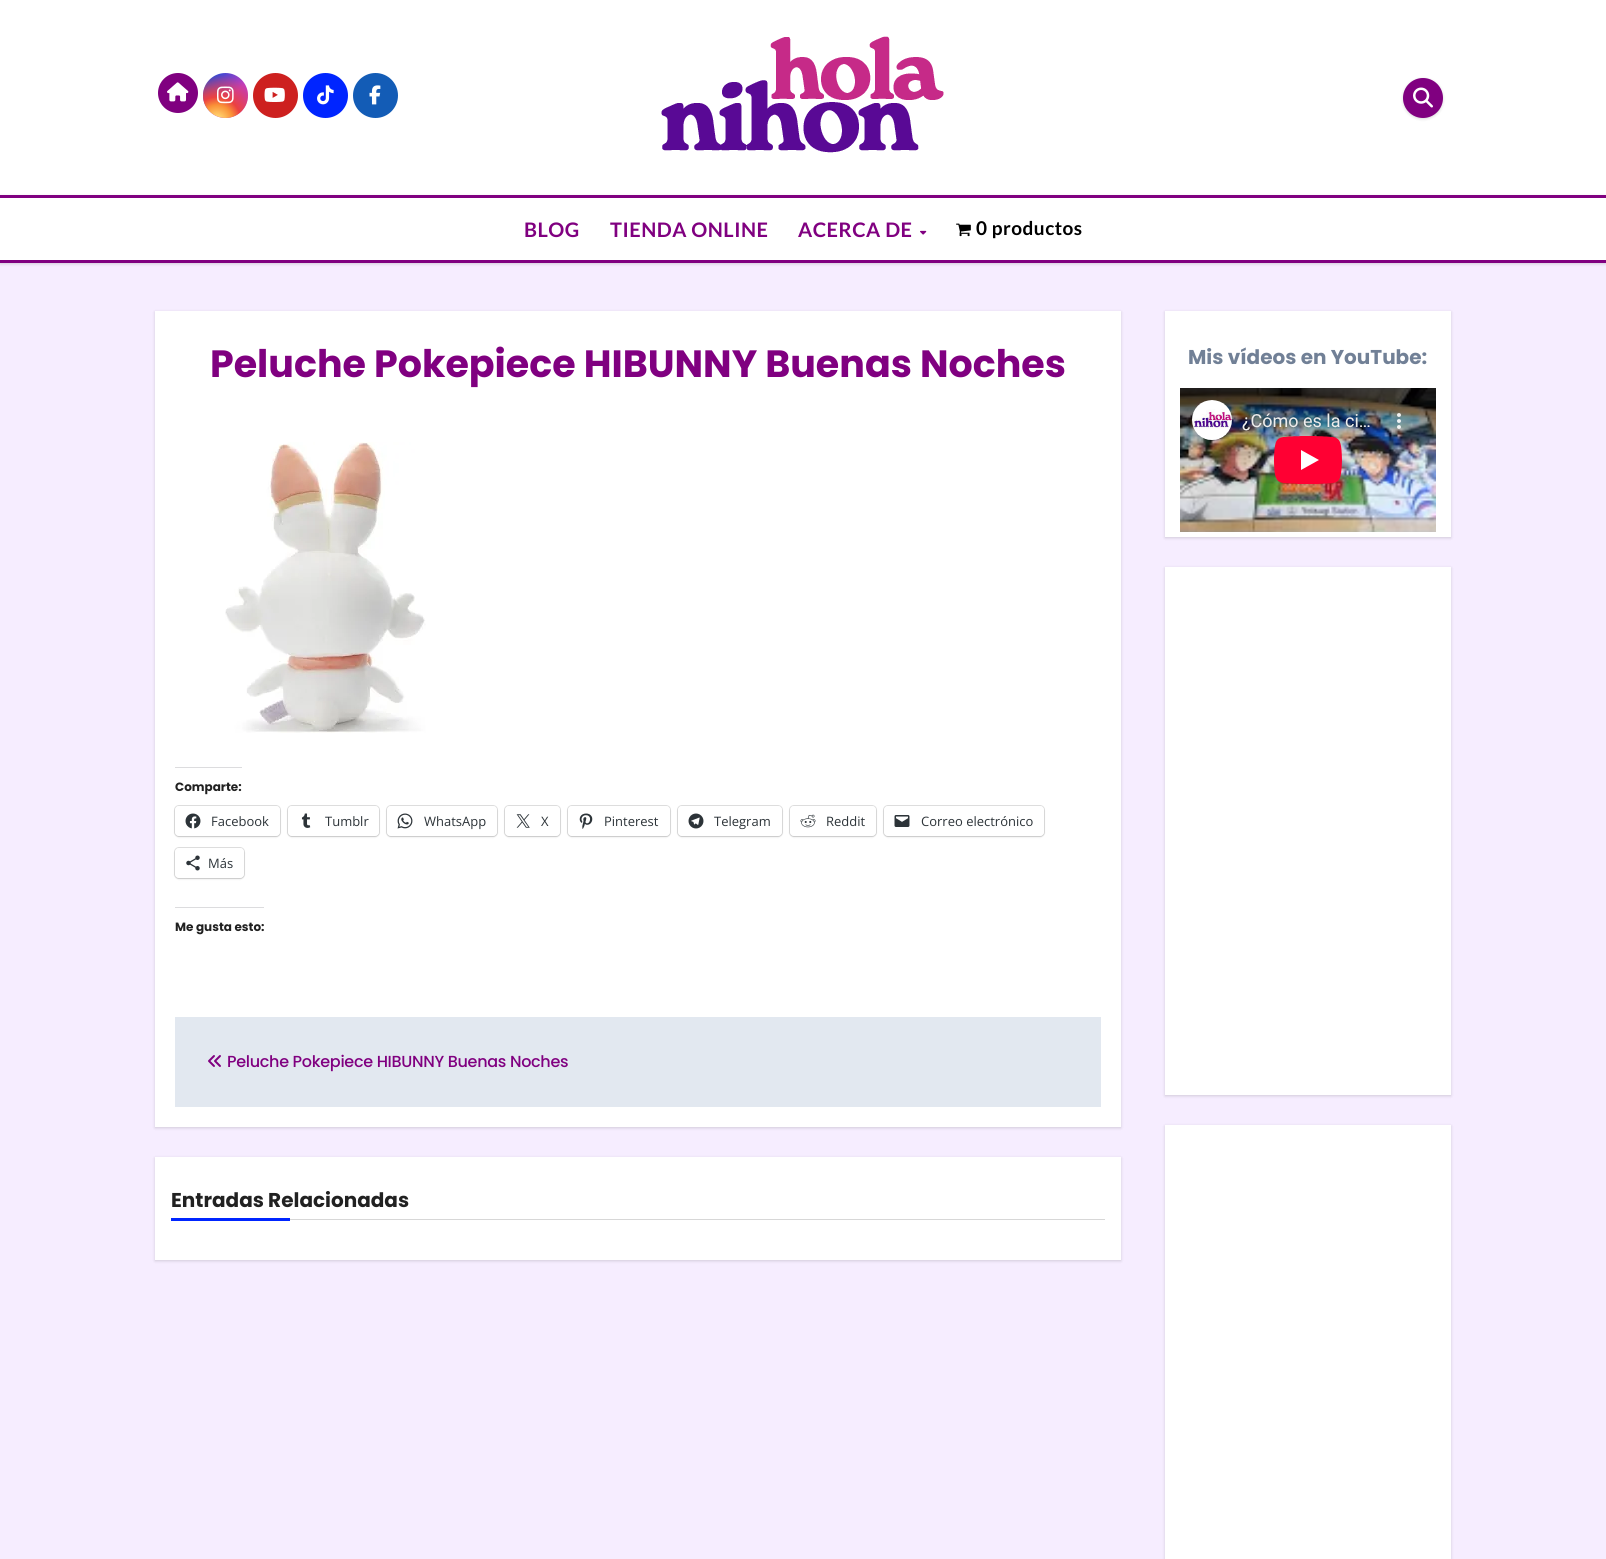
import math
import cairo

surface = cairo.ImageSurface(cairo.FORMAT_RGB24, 1606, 1559)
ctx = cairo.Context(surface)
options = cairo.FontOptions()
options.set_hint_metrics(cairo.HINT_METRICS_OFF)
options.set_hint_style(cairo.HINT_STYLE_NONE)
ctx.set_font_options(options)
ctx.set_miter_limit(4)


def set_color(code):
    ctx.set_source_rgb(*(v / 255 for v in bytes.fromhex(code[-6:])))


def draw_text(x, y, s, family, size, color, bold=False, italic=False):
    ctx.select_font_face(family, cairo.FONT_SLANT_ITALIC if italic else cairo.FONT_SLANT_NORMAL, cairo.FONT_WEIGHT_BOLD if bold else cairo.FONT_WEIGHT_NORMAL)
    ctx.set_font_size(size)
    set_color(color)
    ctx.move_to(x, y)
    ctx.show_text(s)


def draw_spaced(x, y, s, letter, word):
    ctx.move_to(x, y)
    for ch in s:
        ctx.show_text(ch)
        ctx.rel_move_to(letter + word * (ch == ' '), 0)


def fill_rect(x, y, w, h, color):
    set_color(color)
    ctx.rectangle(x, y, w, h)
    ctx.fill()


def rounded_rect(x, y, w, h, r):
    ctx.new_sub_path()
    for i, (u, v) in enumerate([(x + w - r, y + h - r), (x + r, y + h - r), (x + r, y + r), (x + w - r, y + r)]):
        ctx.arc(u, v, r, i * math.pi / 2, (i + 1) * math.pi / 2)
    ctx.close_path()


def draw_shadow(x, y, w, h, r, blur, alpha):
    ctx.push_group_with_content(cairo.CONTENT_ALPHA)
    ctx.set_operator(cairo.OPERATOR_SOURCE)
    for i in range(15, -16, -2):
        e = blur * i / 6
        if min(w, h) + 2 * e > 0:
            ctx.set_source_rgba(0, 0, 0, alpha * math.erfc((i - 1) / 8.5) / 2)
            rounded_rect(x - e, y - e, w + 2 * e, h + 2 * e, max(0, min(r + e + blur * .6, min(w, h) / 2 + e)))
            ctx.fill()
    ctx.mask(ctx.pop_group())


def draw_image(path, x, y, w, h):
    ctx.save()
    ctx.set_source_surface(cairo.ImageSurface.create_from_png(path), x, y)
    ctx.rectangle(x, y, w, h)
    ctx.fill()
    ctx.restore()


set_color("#f6edff")
ctx.paint()
fill_rect(0, 0, 1606, 195, "#ffffff")
set_color("#800080")
ctx.arc(178, 93, 20, 0, 2 * math.pi)
ctx.fill()
draw_image("assets/img1.png", 167, 82, 22, 20)
gradient = cairo.LinearGradient(203, 73, 248, 118)
gradient.add_color_stop_rgba(0.12, 0.137, 0.294, 0.843, 1)
gradient.add_color_stop_rgba(0.58, 0.765, 0.235, 0.745, 1)
ctx.set_source(gradient)
ctx.arc(225.5, 95.5, 22.5, 0, 2 * math.pi)
ctx.fill()
gradient = cairo.RadialGradient(217, 121, 0, 217, 121, 57)
gradient.add_color_stop_rgba(0, 1, 0.882, 0.49, 1)
gradient.add_color_stop_rgba(0.1, 1, 0.804, 0.412, 1)
gradient.add_color_stop_rgba(0.28, 0.98, 0.569, 0.216, 1)
gradient.add_color_stop_rgba(0.42, 0.922, 0.255, 0.255, 1)
gradient.add_color_stop_rgba(0.82, 0.922, 0.255, 0.255, 0)
ctx.set_source(gradient)
ctx.arc(225.5, 95.5, 22.5, 0, 2 * math.pi)
ctx.fill()
draw_image("assets/img2.png", 217, 86, 17, 18)
set_color("#cd201f")
ctx.arc(275.5, 95.5, 22.5, 0, 2 * math.pi)
ctx.fill()
draw_image("assets/img3.png", 264, 87, 21, 15)
set_color("#0025ff")
ctx.arc(325.5, 95.5, 22.5, 0, 2 * math.pi)
ctx.fill()
draw_image("assets/img4.png", 317, 85, 17, 20)
set_color("#135cb6")
ctx.arc(375.5, 95.5, 22.5, 0, 2 * math.pi)
ctx.fill()
draw_image("assets/img5.png", 369, 85, 12, 20)
draw_image("assets/img6.png", 661, 36, 283, 117)
set_color("#000000")
draw_shadow(1403, 79, 40, 40, 20, 1.5, 0.15)
set_color("#800080")
ctx.arc(1423, 98, 20, 0, 2 * math.pi)
ctx.fill()
draw_image("assets/img7.png", 1413, 87, 20, 21)
set_color("#000000")
draw_shadow(0, 196, 1606, 68, 0, 1.5, 0.15)
fill_rect(0, 198, 1606, 62, "#ffffff")
fill_rect(0, 195, 1606, 3, "#800080")
fill_rect(0, 260, 1606, 3, "#800080")
ctx.select_font_face("Lato", cairo.FONT_SLANT_NORMAL, cairo.FONT_WEIGHT_BOLD)
ctx.set_font_size(20)
draw_spaced(524, 237, "BLOG", 0.5, 0)
draw_spaced(610, 237, "TIENDA ONLINE", 0.5, 0)
draw_spaced(798, 237, "ACERCA DE", 0.5, 0)
draw_image("assets/img8.png", 920, 230, 7, 5)
draw_image("assets/img9.png", 956, 223, 15, 14)
ctx.set_font_size(19)
set_color("#000000")
draw_spaced(976, 235, "0 productos", 0.5, 0)
set_color("#000000")
draw_shadow(155, 312, 966, 816, 0, 1.5, 0.15)
fill_rect(155, 311, 966, 816, "#ffffff")
draw_text(210, 377, "Peluche Pokepiece HIBUNNY Buenas Noches", "Poppins", 38, "#800080", bold=True)
draw_image("assets/img10.png", 225, 442, 201, 291)
fill_rect(175, 767, 67, 1, "#dcdcde")
draw_text(175, 791, "Comparte:", "Poppins", 12, "#212121", bold=True)
rounded_rect(174.5, 805.5, 106, 31, 4.5)
set_color("#e0e0e0")
ctx.set_line_width(1)
ctx.stroke()
set_color("#000000")
draw_shadow(175, 807, 105, 30, 4, 1, 0.12)
set_color("#ffffff")
rounded_rect(175, 806, 105, 30, 4)
ctx.fill()
draw_image("assets/img11.png", 185, 813, 16, 16)
draw_text(211, 826, "Facebook", "Open Sans", 13, "#2c3338")
rounded_rect(287.5, 805.5, 92, 31, 4.5)
set_color("#e0e0e0")
ctx.stroke()
set_color("#000000")
draw_shadow(288, 807, 91, 30, 4, 1, 0.12)
set_color("#ffffff")
rounded_rect(288, 806, 91, 30, 4)
ctx.fill()
draw_image("assets/img12.png", 301, 813, 10, 15)
draw_text(325, 826, "Tumblr", "Open Sans", 13, "#2c3338")
rounded_rect(386.5, 805.5, 111, 31, 4.5)
set_color("#e0e0e0")
ctx.stroke()
set_color("#000000")
draw_shadow(387, 807, 110, 30, 4, 1, 0.12)
set_color("#ffffff")
rounded_rect(387, 806, 110, 30, 4)
ctx.fill()
draw_image("assets/img13.png", 397, 813, 16, 16)
draw_text(424, 826, "WhatsApp", "Open Sans", 13, "#2c3338")
rounded_rect(504.5, 805.5, 56, 31, 4.5)
set_color("#e0e0e0")
ctx.stroke()
set_color("#000000")
draw_shadow(505, 807, 55, 30, 4, 1, 0.12)
set_color("#ffffff")
rounded_rect(505, 806, 55, 30, 4)
ctx.fill()
draw_image("assets/img14.png", 516, 814, 14, 14)
draw_text(541, 826, "X", "Open Sans", 13, "#2c3338")
rounded_rect(567.5, 805.5, 103, 31, 4.5)
set_color("#e0e0e0")
ctx.stroke()
set_color("#000000")
draw_shadow(568, 807, 102, 30, 4, 1, 0.12)
set_color("#ffffff")
rounded_rect(568, 806, 102, 30, 4)
ctx.fill()
draw_image("assets/img15.png", 579, 813, 14, 16)
draw_text(604, 826, "Pinterest", "Open Sans", 13, "#2c3338")
rounded_rect(677.5, 805.5, 105, 31, 4.5)
set_color("#e0e0e0")
ctx.stroke()
set_color("#000000")
draw_shadow(678, 807, 104, 30, 4, 1, 0.12)
set_color("#ffffff")
rounded_rect(678, 806, 104, 30, 4)
ctx.fill()
draw_image("assets/img16.png", 688, 813, 16, 16)
draw_text(714, 826, "Telegram", "Open Sans", 13, "#2c3338")
rounded_rect(789.5, 805.5, 87, 31, 4.5)
set_color("#e0e0e0")
ctx.stroke()
set_color("#000000")
draw_shadow(790, 807, 86, 30, 4, 1, 0.12)
set_color("#ffffff")
rounded_rect(790, 806, 86, 30, 4)
ctx.fill()
draw_image("assets/img17.png", 800, 814, 16, 14)
draw_text(826, 826, "Reddit", "Open Sans", 13, "#2c3338")
rounded_rect(883.5, 805.5, 161, 31, 4.5)
set_color("#e0e0e0")
ctx.stroke()
set_color("#000000")
draw_shadow(884, 807, 160, 30, 4, 1, 0.12)
set_color("#ffffff")
rounded_rect(884, 806, 160, 30, 4)
ctx.fill()
draw_image("assets/img18.png", 894, 815, 16, 12)
draw_text(921, 826, "Correo electrónico", "Open Sans", 13, "#2c3338")
rounded_rect(174.5, 847.5, 70, 31, 4.5)
set_color("#e0e0e0")
ctx.stroke()
set_color("#000000")
draw_shadow(175, 849, 69, 30, 4, 1, 0.12)
set_color("#ffffff")
rounded_rect(175, 848, 69, 30, 4)
ctx.fill()
draw_image("assets/img19.png", 186, 855, 14, 16)
draw_text(208, 868, "Más", "Open Sans", 13, "#2c3338")
fill_rect(175, 907, 89, 1, "#dcdcde")
draw_text(175, 931, "Me gusta esto:", "Poppins", 12, "#212121", bold=True)
fill_rect(175, 1017, 926, 90, "#e2e8f0")
draw_image("assets/img20.png", 208, 1055, 13, 12)
ctx.select_font_face("Poppins Medium")
ctx.set_font_size(16)
set_color("#800080")
draw_spaced(227, 1067, "Peluche Pokepiece HIBUNNY Buenas Noches", -0.3, 0)
set_color("#000000")
draw_shadow(155, 1158, 966, 103, 0, 1.5, 0.15)
fill_rect(155, 1157, 966, 103, "#ffffff")
fill_rect(290, 1219, 815, 1, "#d7d7d7")
draw_text(171, 1207, "Entradas Relacionadas", "Poppins", 20, "#212121", bold=True)
fill_rect(171, 1218, 119, 3, "#0025ff")
set_color("#000000")
draw_shadow(1165, 312, 286, 226, 0, 1.5, 0.15)
fill_rect(1165, 311, 286, 226, "#ffffff")
draw_text(1188, 364, "Mis vídeos en YouTube:", "Poppins", 20, "#718096", bold=True)
draw_image("assets/img21.png", 1180, 388, 256, 144)
set_color("#000000")
draw_shadow(1165, 568, 286, 528, 0, 1.5, 0.15)
fill_rect(1165, 567, 286, 528, "#ffffff")
set_color("#000000")
draw_shadow(1165, 1126, 286, 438, 0, 1.5, 0.15)
fill_rect(1165, 1125, 286, 434, "#ffffff")
surface.write_to_png("output.png")
